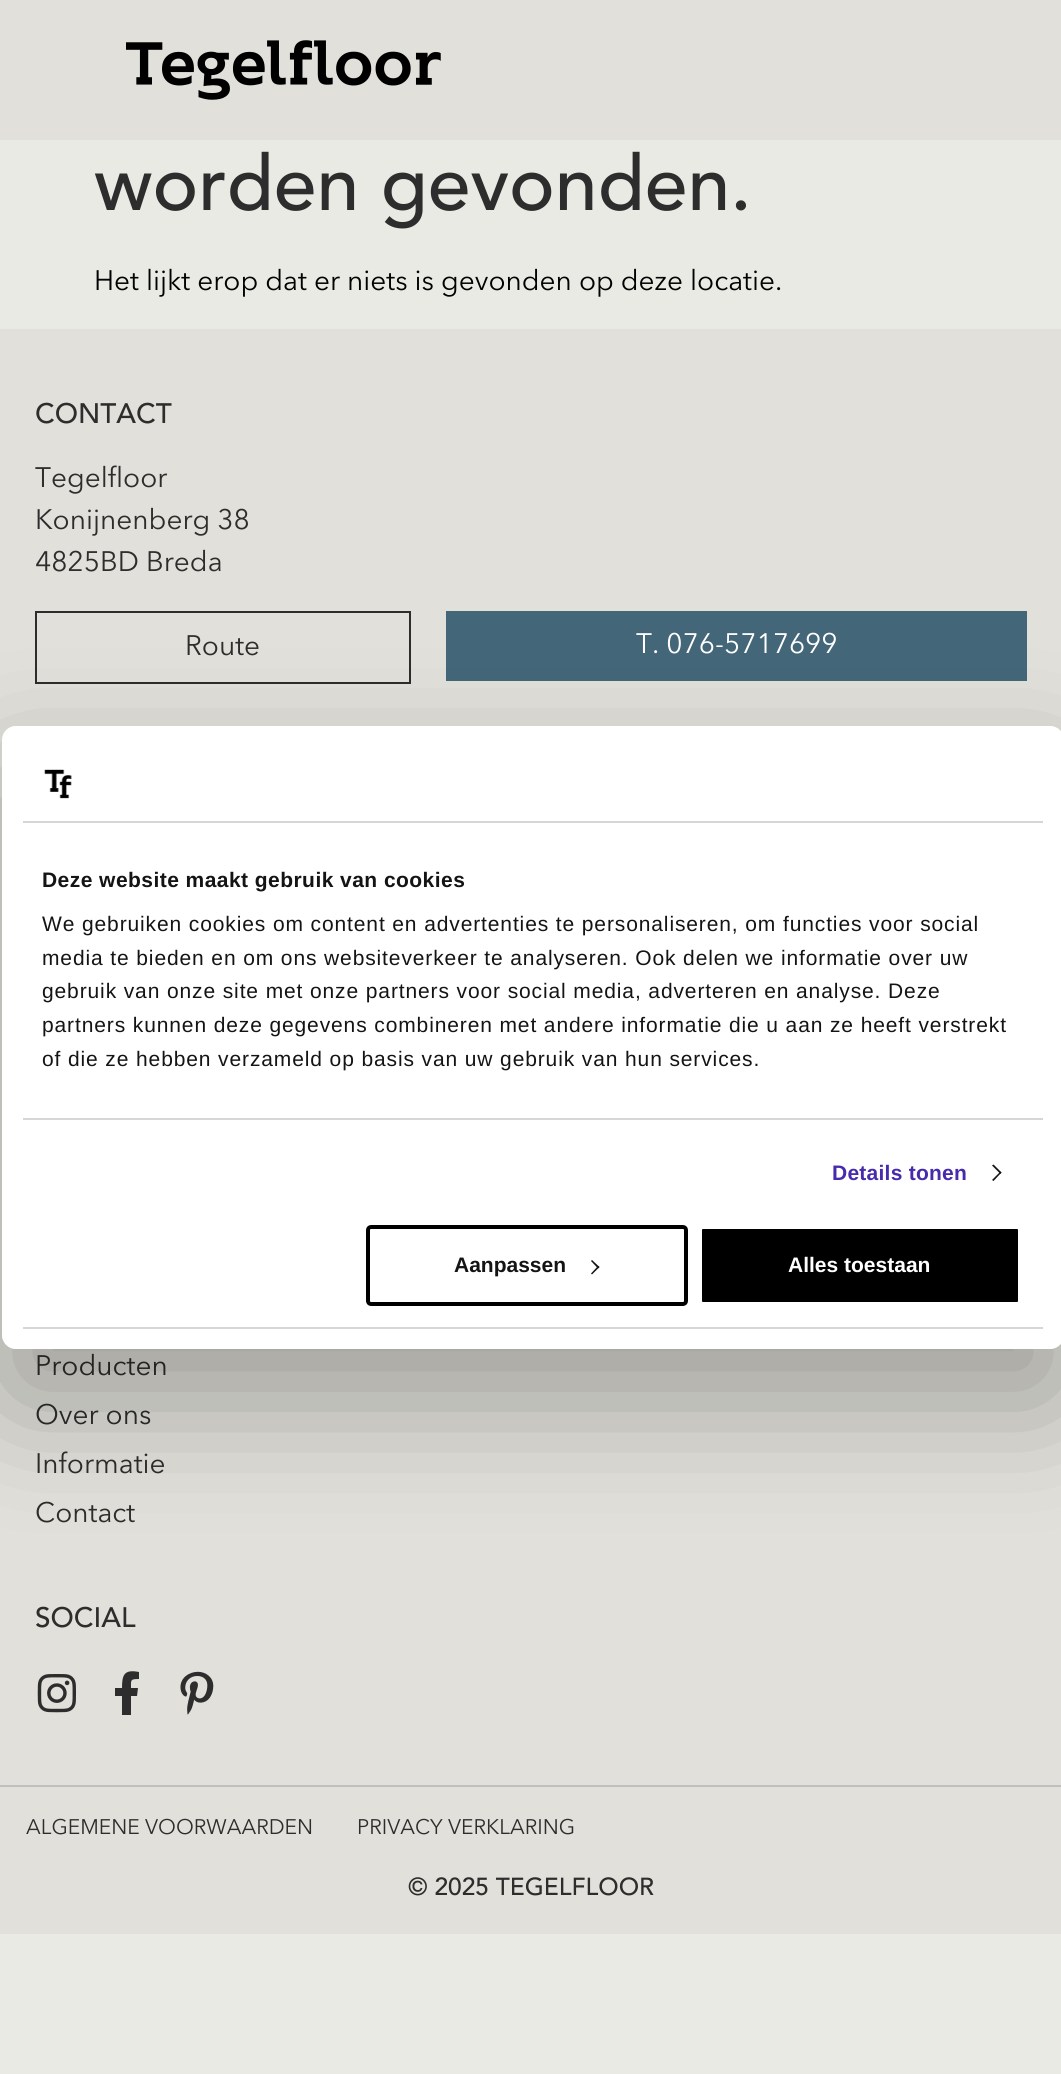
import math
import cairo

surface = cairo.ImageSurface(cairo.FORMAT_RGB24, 1061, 2074)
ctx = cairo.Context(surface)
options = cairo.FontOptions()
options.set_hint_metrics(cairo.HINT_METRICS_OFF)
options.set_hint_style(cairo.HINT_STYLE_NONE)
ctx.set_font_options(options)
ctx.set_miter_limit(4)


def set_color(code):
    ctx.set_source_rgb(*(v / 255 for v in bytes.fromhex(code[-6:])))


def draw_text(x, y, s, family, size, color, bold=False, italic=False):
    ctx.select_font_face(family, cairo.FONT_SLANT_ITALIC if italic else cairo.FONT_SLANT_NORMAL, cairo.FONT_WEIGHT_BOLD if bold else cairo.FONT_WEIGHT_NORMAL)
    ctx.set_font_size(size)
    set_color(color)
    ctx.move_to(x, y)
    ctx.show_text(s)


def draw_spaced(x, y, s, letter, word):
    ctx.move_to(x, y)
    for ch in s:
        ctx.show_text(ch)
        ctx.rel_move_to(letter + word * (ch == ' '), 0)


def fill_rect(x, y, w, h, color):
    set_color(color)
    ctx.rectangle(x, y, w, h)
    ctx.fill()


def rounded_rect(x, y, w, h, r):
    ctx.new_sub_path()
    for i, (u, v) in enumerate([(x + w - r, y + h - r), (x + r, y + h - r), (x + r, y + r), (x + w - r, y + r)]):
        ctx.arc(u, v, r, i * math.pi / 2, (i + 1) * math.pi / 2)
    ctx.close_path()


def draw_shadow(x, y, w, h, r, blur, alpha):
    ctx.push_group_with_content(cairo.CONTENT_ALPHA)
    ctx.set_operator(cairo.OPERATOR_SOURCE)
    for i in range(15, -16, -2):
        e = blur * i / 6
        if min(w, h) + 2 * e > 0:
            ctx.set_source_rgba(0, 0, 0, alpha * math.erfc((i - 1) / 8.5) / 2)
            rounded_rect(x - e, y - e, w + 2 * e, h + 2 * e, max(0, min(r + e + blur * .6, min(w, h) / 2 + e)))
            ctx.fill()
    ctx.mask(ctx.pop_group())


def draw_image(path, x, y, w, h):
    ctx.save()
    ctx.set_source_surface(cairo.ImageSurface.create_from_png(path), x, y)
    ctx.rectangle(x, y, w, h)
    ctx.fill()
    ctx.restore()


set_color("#e9eae3")
ctx.paint()
fill_rect(0, 0, 1061, 140, "#e1e0da")
draw_image("assets/img1.png", 126, 40, 315, 60)
draw_text(94, 210, "worden gevonden.", "Avenir Medium", 77, "#2d2d2d")
draw_text(94, 290, "Het lijkt erop dat er niets is gevonden op deze locatie.", "Avenir Next", 28, "#020101")
fill_rect(0, 329, 1061, 1456, "#e1e0da")
draw_text(35, 423, "CONTACT", "Avenir Medium", 28, "#2d2d2d")
draw_text(35, 487, "Tegelfloor", "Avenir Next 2", 28, "#2d2d2d")
draw_text(35, 529, "Konijnenberg 38", "Avenir Next 2", 28, "#2d2d2d")
draw_text(35, 571, "4825BD Breda", "Avenir Next 2", 28, "#2d2d2d")
ctx.rectangle(36, 612, 374, 71)
ctx.stroke()
draw_text(185, 655, "Route", "Avenir Next 2", 28, "#2d2d2d")
fill_rect(446, 611, 581, 70, "#446679")
draw_text(636, 653, "T. 076-5717699", "Avenir Next 2", 28, "#ffffff")
draw_text(35, 1375, "Producten", "Avenir Next 2", 28, "#2d2d2d")
draw_text(35, 1424, "Over ons", "Avenir Next 2", 28, "#2d2d2d")
draw_text(35, 1473, "Informatie", "Avenir Next 2", 28, "#2d2d2d")
draw_text(35, 1522, "Contact", "Avenir Next 2", 28, "#2d2d2d")
draw_text(35, 1627, "SOCIAL", "Avenir Medium", 28, "#2d2d2d")
draw_image("assets/img2.png", 37, 1674, 39, 39)
ctx.new_path()
ctx.move_to(137, 1696)
ctx.line_to(138, 1688)
ctx.line_to(131, 1688)
ctx.curve_to(131, 1680, 130, 1679, 139, 1679)
ctx.line_to(139, 1672)
ctx.curve_to(124, 1669, 122, 1675, 122, 1688)
ctx.line_to(115, 1688)
ctx.line_to(115, 1696)
ctx.line_to(122, 1696)
ctx.line_to(122, 1715)
ctx.line_to(131, 1715)
ctx.line_to(131, 1696)
ctx.close_path()
ctx.fill()
draw_image("assets/img3.png", 180, 1671, 34, 44)
fill_rect(0, 1787, 1061, 147, "#e1e0da")
fill_rect(0, 1785, 1061, 2, "#c0c0c0")
draw_text(26, 1834, "ALGEMENE VOORWAARDEN", "Avenir Next 2", 21, "#2d2d2d")
draw_text(357, 1834, "PRIVACY VERKLARING", "Avenir Next 2", 21, "#2d2d2d")
draw_text(408, 1895, "© 2025 TEGELFLOOR", "Avenir Medium", 24.5, "#2d2d2d")
ctx.save()
ctx.set_fill_rule(cairo.FILL_RULE_EVEN_ODD)
ctx.new_path()
ctx.move_to(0, 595)
ctx.line_to(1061, 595)
ctx.line_to(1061, 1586)
ctx.line_to(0, 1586)
ctx.close_path()
ctx.move_to(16, 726)
ctx.line_to(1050, 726)
ctx.curve_to(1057.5, 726, 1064, 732.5, 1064, 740)
ctx.line_to(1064, 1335)
ctx.curve_to(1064, 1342.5, 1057.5, 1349, 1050, 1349)
ctx.line_to(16, 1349)
ctx.curve_to(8.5, 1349, 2, 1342.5, 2, 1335)
ctx.line_to(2, 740)
ctx.curve_to(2, 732.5, 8.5, 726, 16, 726)
ctx.close_path()
ctx.clip()
set_color("#000000")
draw_shadow(2, 779, 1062, 623, 14, 61, 0.3)
ctx.restore()
set_color("#ffffff")
rounded_rect(2, 726, 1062, 623, 14)
ctx.fill()
fill_rect(23, 821, 1020, 2, "#d6d6d6")
draw_image("assets/img4.png", 44, 769, 28, 30)
fill_rect(23, 1118, 1020, 2, "#d6d6d6")
ctx.select_font_face("Liberation Sans", cairo.FONT_SLANT_NORMAL, cairo.FONT_WEIGHT_BOLD)
ctx.set_font_size(21)
set_color("#141414")
draw_spaced(42, 887, "Deze website maakt gebruik van cookies", 0.45, 0)
ctx.select_font_face("Liberation Sans")
draw_spaced(42, 931, "We gebruiken cookies om content en advertenties te personaliseren, om functies voor social", 0.88, 0)
draw_spaced(42, 965, "media te bieden en om ons websiteverkeer te analyseren. Ook delen we informatie over uw", 0.88, 0)
draw_spaced(42, 998, "gebruik van onze site met onze partners voor social media, adverteren en analyse. Deze", 0.88, 0)
draw_spaced(42, 1032, "partners kunnen deze gegevens combineren met andere informatie die u aan ze heeft verstrekt", 0.88, 0)
draw_spaced(42, 1066, "of die ze hebben verzameld op basis van uw gebruik van hun services.", 0.88, 0)
ctx.select_font_face("Liberation Sans", cairo.FONT_SLANT_NORMAL, cairo.FONT_WEIGHT_BOLD)
set_color("#472aad")
draw_spaced(832, 1180, "Details tonen", 0.25, 0)
set_color("#141414")
ctx.new_path()
ctx.move_to(993.5, 1164.5)
ctx.line_to(1001.5, 1172.5)
ctx.line_to(1000.5, 1174)
ctx.line_to(992, 1165.5)
ctx.close_path()
ctx.fill()
ctx.new_path()
ctx.move_to(1000.5, 1171.5)
ctx.line_to(1001.5, 1172.5)
ctx.line_to(993.5, 1181)
ctx.line_to(992, 1180)
ctx.close_path()
ctx.fill()
fill_rect(23, 1327, 1020, 2, "#d6d6d6")
rounded_rect(368, 1227, 318, 77, 3)
set_color("#000000")
ctx.set_line_width(4)
ctx.stroke()
draw_text(454, 1272, "Aanpassen", "Liberation Sans", 21, "#141414", bold=True)
ctx.new_path()
ctx.move_to(592, 1260)
ctx.line_to(599.5, 1267)
ctx.line_to(598, 1268.5)
ctx.line_to(591, 1261)
ctx.close_path()
ctx.fill()
ctx.new_path()
ctx.move_to(598, 1266)
ctx.line_to(599.5, 1267)
ctx.line_to(592, 1274.5)
ctx.line_to(591, 1273.5)
ctx.close_path()
ctx.fill()
set_color("#000000")
rounded_rect(700, 1227, 320, 77, 3)
ctx.fill_preserve()
set_color("#ffffff")
ctx.stroke()
draw_text(788, 1272, "Alles toestaan", "Liberation Sans", 21, "#ffffff", bold=True)
surface.write_to_png("output.png")
